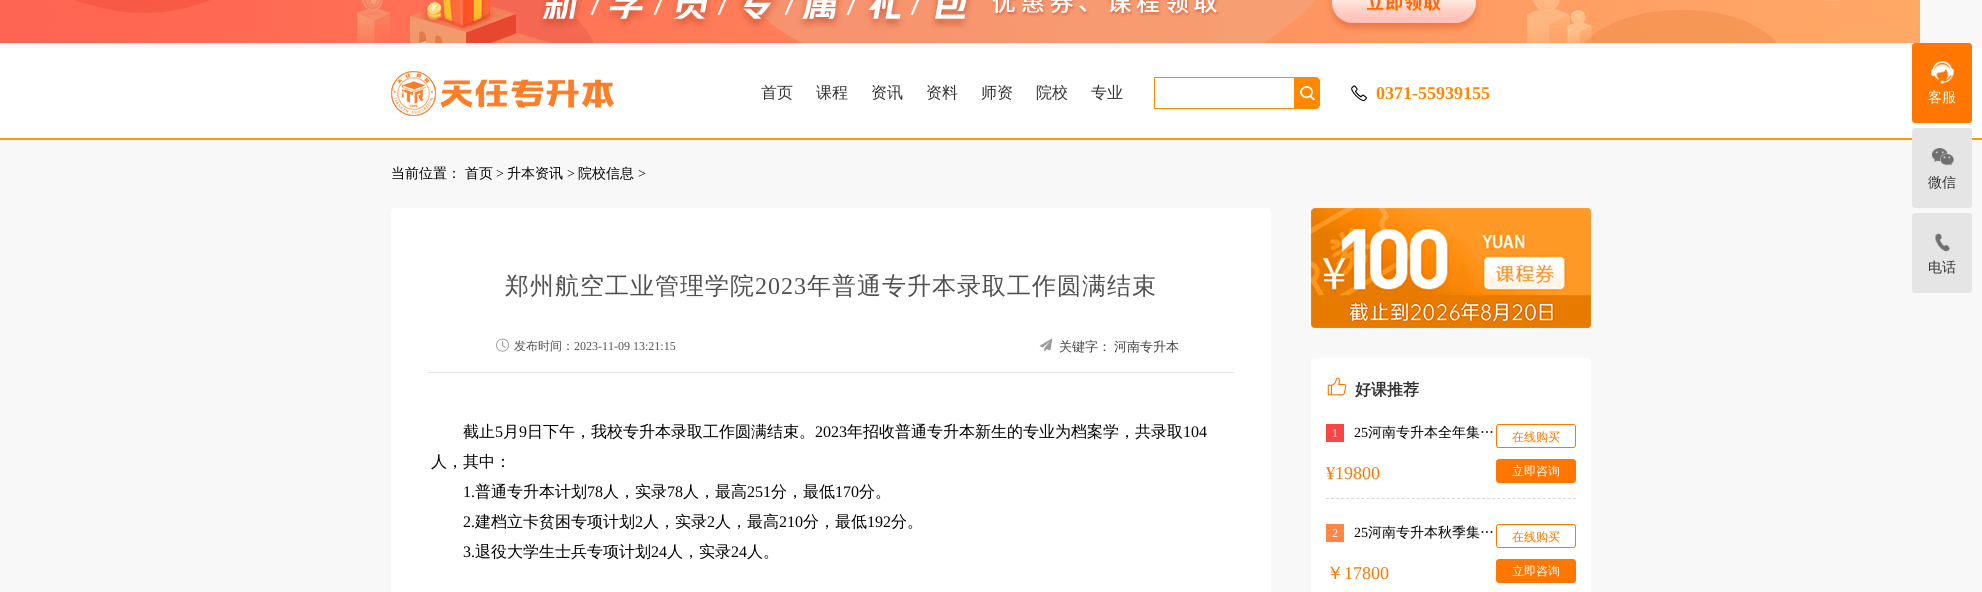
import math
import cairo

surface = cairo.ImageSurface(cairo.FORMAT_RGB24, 1982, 592)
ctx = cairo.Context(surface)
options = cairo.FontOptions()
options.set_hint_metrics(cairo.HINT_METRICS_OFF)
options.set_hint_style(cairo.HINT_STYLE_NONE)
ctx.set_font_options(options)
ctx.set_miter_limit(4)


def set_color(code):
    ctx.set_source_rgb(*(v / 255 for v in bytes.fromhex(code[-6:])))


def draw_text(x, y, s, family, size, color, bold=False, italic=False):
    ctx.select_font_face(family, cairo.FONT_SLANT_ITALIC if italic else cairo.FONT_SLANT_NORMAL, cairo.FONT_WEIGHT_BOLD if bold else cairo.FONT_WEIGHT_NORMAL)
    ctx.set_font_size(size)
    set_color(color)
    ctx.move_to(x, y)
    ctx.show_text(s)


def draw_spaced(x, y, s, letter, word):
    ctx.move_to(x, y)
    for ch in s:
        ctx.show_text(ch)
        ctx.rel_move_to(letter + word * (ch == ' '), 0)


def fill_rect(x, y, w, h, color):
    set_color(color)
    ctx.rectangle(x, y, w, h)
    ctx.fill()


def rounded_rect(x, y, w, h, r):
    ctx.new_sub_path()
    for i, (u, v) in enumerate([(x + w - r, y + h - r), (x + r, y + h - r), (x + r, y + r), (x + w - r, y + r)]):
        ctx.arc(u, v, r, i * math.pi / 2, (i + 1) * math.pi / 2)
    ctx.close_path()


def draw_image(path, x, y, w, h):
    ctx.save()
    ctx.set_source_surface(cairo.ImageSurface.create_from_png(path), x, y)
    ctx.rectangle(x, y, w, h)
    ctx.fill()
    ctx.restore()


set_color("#f8f8f8")
ctx.paint()
draw_image("assets/img1.png", 0, 0, 1920, 43)
fill_rect(0, 48, 1982, 90, "#ffffff")
draw_image("assets/img2.png", 391, 71, 223, 45)
draw_text(761, 98, "首页", "WenQuanYi Zen Hei Medium", 16, "#333333")
draw_text(816, 98, "课程", "WenQuanYi Zen Hei Medium", 16, "#333333")
draw_text(871, 98, "资讯", "WenQuanYi Zen Hei Medium", 16, "#333333")
draw_text(926, 98, "资料", "WenQuanYi Zen Hei Medium", 16, "#333333")
draw_text(981, 98, "师资", "WenQuanYi Zen Hei Medium", 16, "#333333")
draw_text(1036, 98, "院校", "WenQuanYi Zen Hei Medium", 16, "#333333")
draw_text(1091, 98, "专业", "WenQuanYi Zen Hei Medium", 16, "#333333")
fill_rect(1154, 77, 140, 1, "#ff8800")
fill_rect(1154, 108, 140, 1, "#ff8800")
fill_rect(1154, 77, 1, 32, "#ff8800")
ctx.new_path()
ctx.move_to(1294, 77)
ctx.line_to(1316, 77)
ctx.curve_to(1318, 77, 1320, 79, 1320, 81)
ctx.line_to(1320, 105)
ctx.curve_to(1320, 107, 1318, 109, 1316, 109)
ctx.line_to(1294, 109)
ctx.close_path()
ctx.fill()
draw_image("assets/img3.png", 1300, 86, 15, 14)
draw_image("assets/img4.png", 1351, 85, 16, 17)
draw_text(1376, 99, "0371-55939155", "Liberation Serif", 18, "#ff8800", bold=True)
set_color("#ff7700")
rounded_rect(1912, 43, 60, 80, 3)
ctx.fill()
draw_image("assets/img5.png", 1931, 61, 23, 23)
draw_text(1928, 102, "客服", "WenQuanYi Zen Hei Medium", 14, "#ffffff")
fill_rect(0, 138, 1982, 2, "#ff9900")
set_color("#e5e5e5")
rounded_rect(1912, 128, 60, 80, 3)
ctx.fill()
draw_image("assets/img6.png", 1931, 148, 23, 18)
draw_text(1928, 187, "微信", "WenQuanYi Zen Hei Medium", 14, "#333333")
set_color("#e5e5e5")
rounded_rect(1912, 213, 60, 80, 3)
ctx.fill()
draw_image("assets/img7.png", 1934, 233, 16, 19)
draw_text(1928, 272, "电话", "WenQuanYi Zen Hei Medium", 14, "#333333")
draw_text(391, 178, "当前位置：", "WenQuanYi Zen Hei Medium", 14, "#000000")
draw_text(465, 178, "首页", "WenQuanYi Zen Hei Medium", 14, "#000000")
draw_text(496, 178, ">", "Liberation Serif", 14, "#000000")
draw_text(507, 178, "升本资讯", "WenQuanYi Zen Hei Medium", 14, "#000000")
draw_text(567, 178, ">", "Liberation Serif", 14, "#000000")
draw_text(578, 178, "院校信息", "WenQuanYi Zen Hei Medium", 14, "#000000")
draw_text(638, 178, ">", "Liberation Serif", 14, "#000000")
set_color("#ffffff")
rounded_rect(391, 208, 880, 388, 4)
ctx.fill()
ctx.select_font_face("WenQuanYi Zen Hei Medium")
ctx.set_font_size(24)
set_color("#515151")
draw_spaced(505, 294, "郑州航空工业管理学院", 1, 0)
ctx.select_font_face("Liberation Serif")
draw_spaced(755, 294, "2023", 1, 0)
ctx.select_font_face("WenQuanYi Zen Hei Medium")
draw_spaced(807, 294, "年普通专升本录取工作圆满结束", 1, 0)
fill_rect(428, 372, 806, 1, "#e5e5e5")
draw_image("assets/img8.png", 496, 338, 13, 14)
draw_text(514, 350, "发布时间：", "WenQuanYi Zen Hei Medium", 12, "#515151")
draw_text(574, 350, "2023-11-09 13:21:15", "Liberation Serif", 12, "#515151")
draw_image("assets/img9.png", 1039, 338, 14, 14)
draw_text(1059, 351, "关键字：", "WenQuanYi Zen Hei Medium", 13, "#414141")
draw_text(1114, 351, "河南专升本", "WenQuanYi Zen Hei Medium", 13, "#414141")
draw_text(463, 437, "截止", "WenQuanYi Zen Hei Medium", 16, "#000000")
draw_text(495, 437, "5", "Liberation Serif", 16, "#000000")
draw_text(503, 437, "月", "WenQuanYi Zen Hei Medium", 16, "#000000")
draw_text(519, 437, "9", "Liberation Serif", 16, "#000000")
draw_text(527, 437, "日下午，我校专升本录取工作圆满结束。", "WenQuanYi Zen Hei Medium", 16, "#000000")
draw_text(815, 437, "2023", "Liberation Serif", 16, "#000000")
draw_text(847, 437, "年招收普通专升本新生的专业为档案学，共录取", "WenQuanYi Zen Hei Medium", 16, "#000000")
draw_text(1183, 437, "104", "Liberation Serif", 16, "#000000")
draw_text(431, 467, "人，其中：", "WenQuanYi Zen Hei Medium", 16, "#000000")
draw_text(463, 497, "1.", "Liberation Serif", 16, "#000000")
draw_text(475, 497, "普通专升本计划", "WenQuanYi Zen Hei Medium", 16, "#000000")
draw_text(587, 497, "78", "Liberation Serif", 16, "#000000")
draw_text(603, 497, "人，实录", "WenQuanYi Zen Hei Medium", 16, "#000000")
draw_text(667, 497, "78", "Liberation Serif", 16, "#000000")
draw_text(683, 497, "人，最高", "WenQuanYi Zen Hei Medium", 16, "#000000")
draw_text(747, 497, "251", "Liberation Serif", 16, "#000000")
draw_text(771, 497, "分，最低", "WenQuanYi Zen Hei Medium", 16, "#000000")
draw_text(835, 497, "170", "Liberation Serif", 16, "#000000")
draw_text(859, 497, "分。", "WenQuanYi Zen Hei Medium", 16, "#000000")
draw_text(463, 527, "2.", "Liberation Serif", 16, "#000000")
draw_text(475, 527, "建档立卡贫困专项计划", "WenQuanYi Zen Hei Medium", 16, "#000000")
draw_text(635, 527, "2", "Liberation Serif", 16, "#000000")
draw_text(643, 527, "人，实录", "WenQuanYi Zen Hei Medium", 16, "#000000")
draw_text(707, 527, "2", "Liberation Serif", 16, "#000000")
draw_text(715, 527, "人，最高", "WenQuanYi Zen Hei Medium", 16, "#000000")
draw_text(779, 527, "210", "Liberation Serif", 16, "#000000")
draw_text(803, 527, "分，最低", "WenQuanYi Zen Hei Medium", 16, "#000000")
draw_text(867, 527, "192", "Liberation Serif", 16, "#000000")
draw_text(891, 527, "分。", "WenQuanYi Zen Hei Medium", 16, "#000000")
draw_text(463, 557, "3.", "Liberation Serif", 16, "#000000")
draw_text(475, 557, "退役大学生士兵专项计划", "WenQuanYi Zen Hei Medium", 16, "#000000")
draw_text(651, 557, "24", "Liberation Serif", 16, "#000000")
draw_text(667, 557, "人，实录", "WenQuanYi Zen Hei Medium", 16, "#000000")
draw_text(731, 557, "24", "Liberation Serif", 16, "#000000")
draw_text(747, 557, "人。", "WenQuanYi Zen Hei Medium", 16, "#000000")
draw_image("assets/img10.png", 1311, 208, 280, 120)
set_color("#ffffff")
rounded_rect(1311, 358, 280, 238, 4)
ctx.fill()
draw_image("assets/img11.png", 1327, 377, 20, 19)
draw_text(1355, 395, "好课推荐", "WenQuanYi Zen Hei", 16, "#333333", bold=True)
ctx.new_path()
ctx.move_to(1326, 498.5)
ctx.line_to(1576, 498.5)
set_color("#d7d7d7")
ctx.set_line_width(1)
ctx.set_dash([3, 2.04])
ctx.stroke()
fill_rect(1326, 424, 18, 18, "#f54545")
draw_text(1332, 437, "1", "Liberation Serif", 12, "#ffffff")
draw_text(1354, 437, "25", "Liberation Serif", 14, "#000000")
draw_text(1368, 437, "河南专升本全年集…", "WenQuanYi Zen Hei Medium", 14, "#000000")
rounded_rect(1496.5, 424.5, 79, 23, 2.5)
set_color("#ff7700")
ctx.set_dash([])
ctx.stroke()
draw_text(1512, 441, "在线购买", "WenQuanYi Zen Hei Medium", 12, "#ff7700")
draw_text(1326, 479, "¥19800", "Liberation Serif", 18, "#ff7700")
rounded_rect(1496, 459, 80, 24, 3)
ctx.fill()
draw_text(1512, 475, "立即咨询", "WenQuanYi Zen Hei Medium", 12, "#ffffff")
fill_rect(1326, 524, 18, 18, "#ff8547")
draw_text(1332, 537, "2", "Liberation Serif", 12, "#ffffff")
draw_text(1354, 537, "25", "Liberation Serif", 14, "#000000")
draw_text(1368, 537, "河南专升本秋季集…", "WenQuanYi Zen Hei Medium", 14, "#000000")
rounded_rect(1496.5, 524.5, 79, 23, 2.5)
set_color("#ff7700")
ctx.stroke()
draw_text(1512, 541, "在线购买", "WenQuanYi Zen Hei Medium", 12, "#ff7700")
draw_text(1326, 579, "￥", "WenQuanYi Zen Hei Medium", 18, "#ff7700")
draw_text(1344, 579, "17800", "Liberation Serif", 18, "#ff7700")
rounded_rect(1496, 559, 80, 24, 3)
ctx.fill()
draw_text(1512, 575, "立即咨询", "WenQuanYi Zen Hei Medium", 12, "#ffffff")
surface.write_to_png("output.png")
